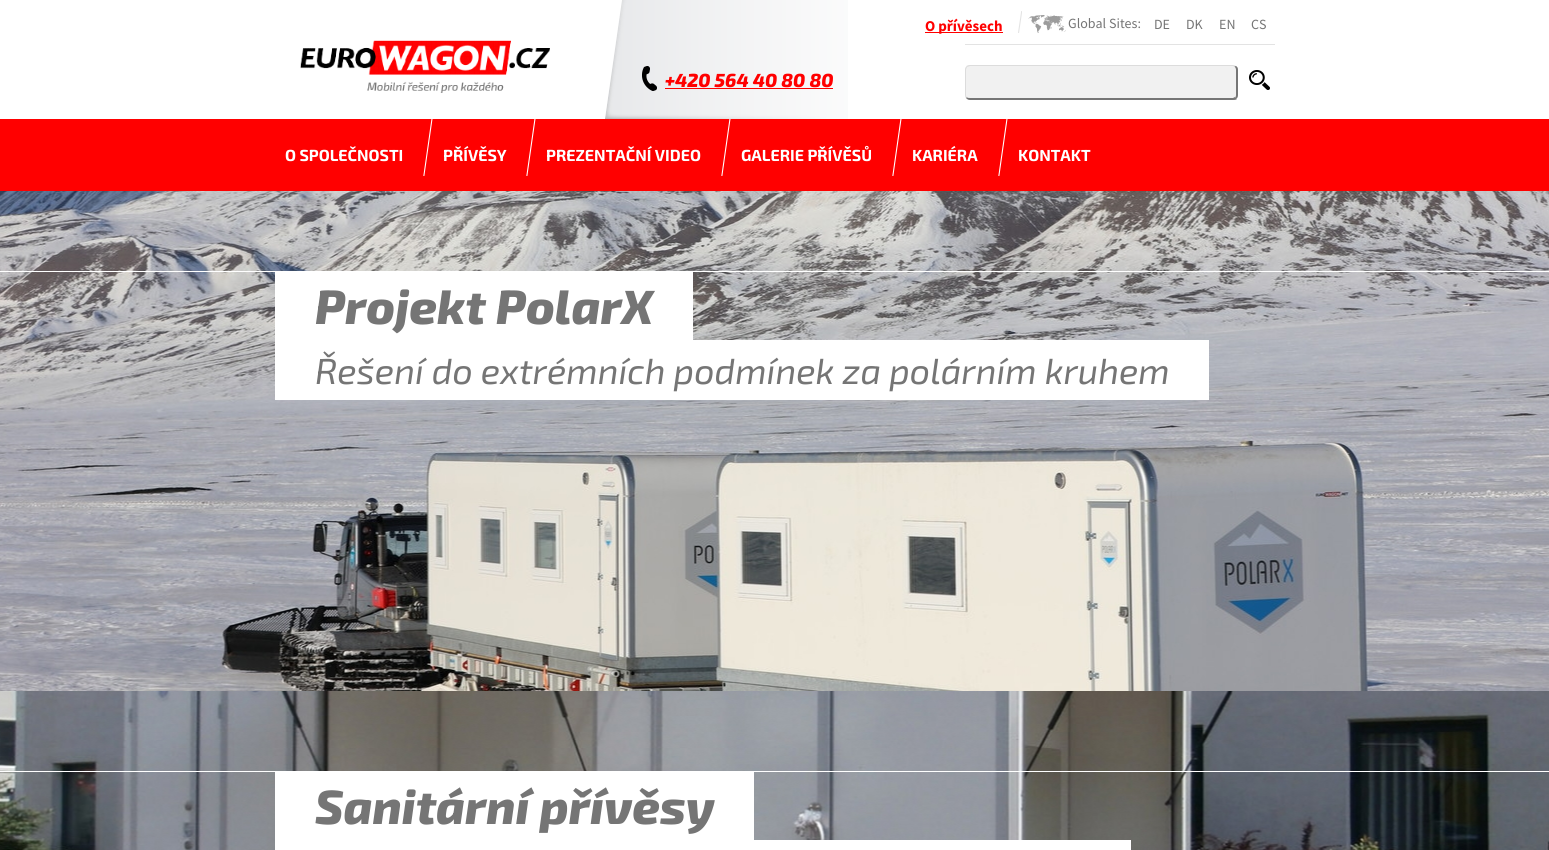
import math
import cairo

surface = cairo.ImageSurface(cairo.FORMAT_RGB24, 1549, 850)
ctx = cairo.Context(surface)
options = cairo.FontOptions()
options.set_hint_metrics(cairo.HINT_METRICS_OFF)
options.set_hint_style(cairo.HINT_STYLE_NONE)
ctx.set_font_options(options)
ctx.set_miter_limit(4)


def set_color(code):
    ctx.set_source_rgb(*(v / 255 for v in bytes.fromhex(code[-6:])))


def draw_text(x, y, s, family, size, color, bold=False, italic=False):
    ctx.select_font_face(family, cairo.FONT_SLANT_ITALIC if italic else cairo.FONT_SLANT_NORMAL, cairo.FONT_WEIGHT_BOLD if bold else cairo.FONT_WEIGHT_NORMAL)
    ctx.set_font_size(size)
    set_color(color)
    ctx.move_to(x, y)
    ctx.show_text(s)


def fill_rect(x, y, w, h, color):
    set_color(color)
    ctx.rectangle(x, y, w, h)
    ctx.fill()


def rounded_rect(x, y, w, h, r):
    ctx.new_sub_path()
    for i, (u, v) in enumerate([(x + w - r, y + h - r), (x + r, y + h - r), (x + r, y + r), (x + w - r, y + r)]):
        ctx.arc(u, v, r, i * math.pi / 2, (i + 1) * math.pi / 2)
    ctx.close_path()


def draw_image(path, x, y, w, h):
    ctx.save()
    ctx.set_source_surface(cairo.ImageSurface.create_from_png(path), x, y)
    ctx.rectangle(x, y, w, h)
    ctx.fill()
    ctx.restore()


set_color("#ffffff")
ctx.paint()
draw_image("assets/img1.png", 300, 40, 250, 53)
draw_image("assets/img2.png", 605, 0, 243, 119)
fill_rect(925, 32, 78, 1, "#ff0000")
draw_text(925, 31, "O přívěsech", "Source Sans Pro", 15, "#ff0000", bold=True)
draw_image("assets/img3.png", 1018, 11, 4, 22)
draw_image("assets/img4.png", 1028, 15, 38, 18)
draw_text(1068, 28, "Global Sites:", "Source Sans Pro", 14, "#757575")
draw_text(1154, 29, "DE", "Source Sans Pro", 14, "#757575")
draw_text(1186, 29, "DK", "Source Sans Pro", 14, "#757575")
draw_text(1219, 29, "EN", "Source Sans Pro", 14, "#757575")
draw_text(1251, 29, "CS", "Source Sans Pro", 14, "#757575")
draw_image("assets/img5.png", 642, 66, 15, 25)
draw_text(665, 87, "+420 564 40 80 80", "Exo 2 ExtraBold", 19, "#ff0000", italic=True)
fill_rect(665, 88, 168, 1, "#ff0000")
fill_rect(965, 44, 310, 1, "#e3e3e3")
set_color("#f1f1f1")
rounded_rect(965, 65, 273, 35, 5)
ctx.fill()
set_color("#dcdcdc")
ctx.new_path()
ctx.move_to(970, 65)
ctx.curve_to(968, 65, 967, 66, 966, 66)
ctx.line_to(967, 67)
ctx.line_to(970, 66)
ctx.line_to(1233, 66)
ctx.line_to(1235, 67)
ctx.line_to(1236, 66)
ctx.line_to(1233, 65)
ctx.close_path()
ctx.fill()
set_color("#767676")
ctx.new_path()
ctx.move_to(1238, 95)
ctx.line_to(1238, 70)
ctx.curve_to(1238, 68, 1237.5, 67, 1236, 66)
ctx.line_to(1234.5, 66.5)
ctx.curve_to(1235.5, 67.5, 1236, 68.5, 1236, 70)
ctx.line_to(1236, 95)
ctx.curve_to(1236, 96, 1236, 97, 1235, 97)
ctx.line_to(1236.5, 98.5)
ctx.curve_to(1237.5, 98, 1238, 96.5, 1238, 95)
ctx.close_path()
ctx.fill()
ctx.new_path()
ctx.move_to(970, 100)
ctx.line_to(1233, 100)
ctx.curve_to(1234, 100, 1236, 100, 1237, 99)
ctx.line_to(1235, 97)
ctx.line_to(1233, 98)
ctx.line_to(970, 98)
ctx.curve_to(969, 98, 967, 98, 967, 97)
ctx.line_to(966, 98)
ctx.curve_to(967, 99, 968, 100, 970, 100)
ctx.close_path()
ctx.fill()
set_color("#dcdcdc")
ctx.new_path()
ctx.move_to(965, 70)
ctx.line_to(965, 95)
ctx.curve_to(965, 96, 965.5, 97.5, 966, 98)
ctx.line_to(966.5, 96.5)
ctx.line_to(966, 95.5)
ctx.line_to(966, 69.5)
ctx.line_to(967, 67)
ctx.line_to(966.5, 66.5)
ctx.curve_to(965.5, 67, 965, 68.5, 965, 70)
ctx.close_path()
ctx.fill()
draw_image("assets/img6.png", 1249, 70, 21, 20)
fill_rect(0, 119, 1549, 72, "#ff0000")
draw_image("assets/img7.png", 423, 119, 10, 57)
draw_text(285, 161, "O SPOLEČNOSTI", "Exo 2", 16, "#ffffff", bold=True)
draw_image("assets/img7.png", 526, 119, 10, 57)
draw_text(443, 161, "PŘÍVĚSY", "Exo 2", 16, "#ffffff", bold=True)
draw_image("assets/img7.png", 721, 119, 10, 57)
draw_text(546, 161, "PREZENTAČNÍ VIDEO", "Exo 2", 16, "#ffffff", bold=True)
draw_image("assets/img7.png", 892, 119, 10, 57)
draw_text(741, 161, "GALERIE PŘÍVĚSŮ", "Exo 2", 16, "#ffffff", bold=True)
draw_image("assets/img7.png", 998, 119, 10, 57)
draw_text(912, 161, "KARIÉRA", "Exo 2", 16, "#ffffff", bold=True)
draw_text(1018, 161, "KONTAKT", "Exo 2", 16, "#ffffff", bold=True)
draw_image("assets/img8.png", 0, 191, 1549, 500)
fill_rect(0, 271, 1549, 1, "#ffffff")
fill_rect(275, 272, 418, 68, "#ffffff")
draw_text(315, 324, "Projekt PolarX", "Exo 2 ExtraBold", 48, "#757575", italic=True)
fill_rect(275, 340, 934, 60, "#ffffff")
draw_text(315, 384, "Řešení do extrémních podmínek za polárním kruhem", "Exo 2", 36, "#757575", italic=True)
draw_image("assets/img9.png", 0, 691, 1549, 159)
fill_rect(0, 771, 1549, 1, "#ffffff")
fill_rect(275, 772, 479, 68, "#ffffff")
draw_text(315, 824, "Sanitární přívěsy", "Exo 2 ExtraBold", 48, "#757575", italic=True)
fill_rect(275, 840, 856, 10, "#ffffff")
surface.write_to_png("output.png")
